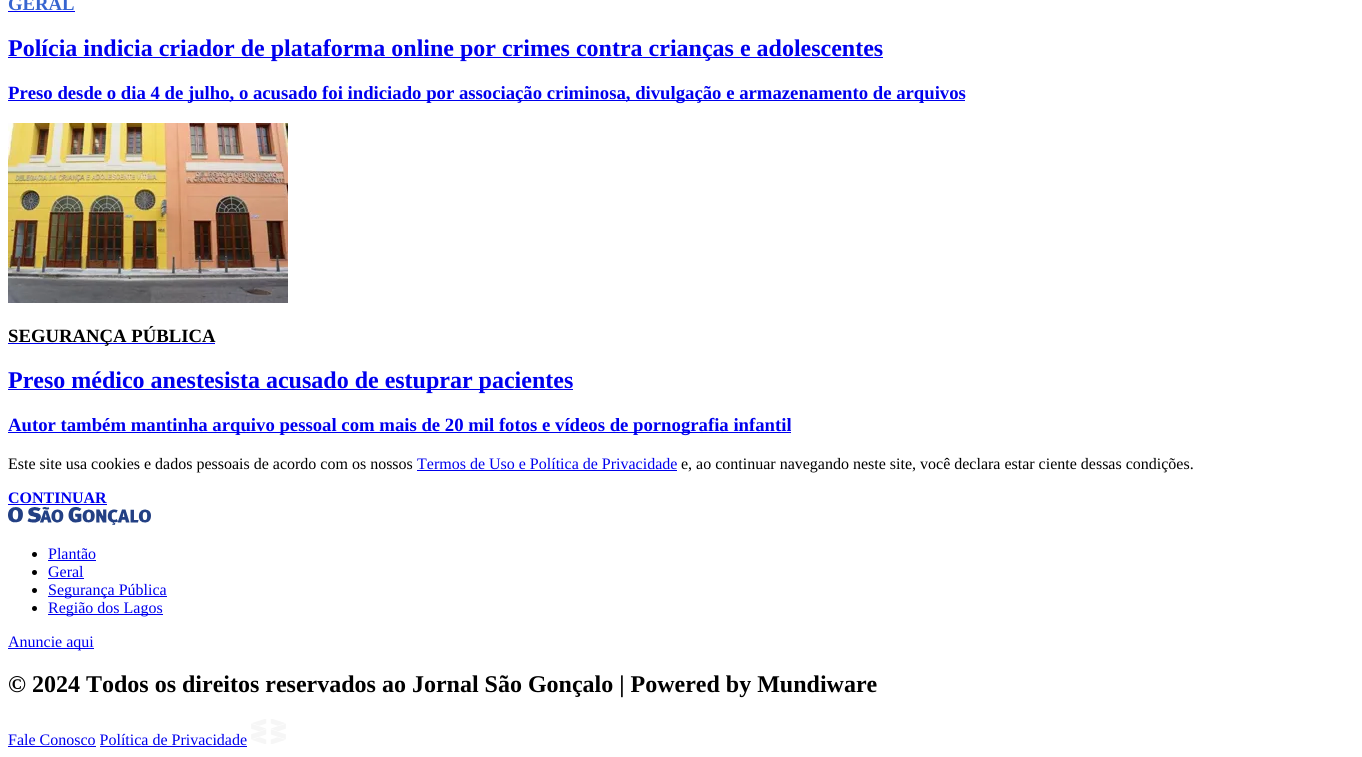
import math
import cairo

surface = cairo.ImageSurface(cairo.FORMAT_RGB24, 1362, 757)
ctx = cairo.Context(surface)
options = cairo.FontOptions()
options.set_hint_metrics(cairo.HINT_METRICS_OFF)
options.set_hint_style(cairo.HINT_STYLE_NONE)
ctx.set_font_options(options)
ctx.set_miter_limit(4)


def set_color(code):
    ctx.set_source_rgb(*(v / 255 for v in bytes.fromhex(code[-6:])))


def draw_text(x, y, s, family, size, color, bold=False, italic=False):
    ctx.select_font_face(family, cairo.FONT_SLANT_ITALIC if italic else cairo.FONT_SLANT_NORMAL, cairo.FONT_WEIGHT_BOLD if bold else cairo.FONT_WEIGHT_NORMAL)
    ctx.set_font_size(size)
    set_color(color)
    ctx.move_to(x, y)
    ctx.show_text(s)


def fill_rect(x, y, w, h, color):
    set_color(color)
    ctx.rectangle(x, y, w, h)
    ctx.fill()


def draw_image(path, x, y, w, h):
    ctx.save()
    ctx.set_source_surface(cairo.ImageSurface.create_from_png(path), x, y)
    ctx.rectangle(x, y, w, h)
    ctx.fill()
    ctx.restore()


set_color("#ffffff")
ctx.paint()
draw_text(8, 10, "GERAL", "Liberation Serif", 18.72, "#3765d0", bold=True)
fill_rect(8, 11, 67, 1, "#0000ee")
fill_rect(8, 57, 875, 1, "#0000ee")
draw_text(8, 56, "Polícia indicia criador de plataforma online por crimes contra crianças e adolescentes", "Liberation Serif", 24, "#0000ee", bold=True)
fill_rect(8, 100, 957, 1, "#0000ee")
draw_text(8, 99, "Preso desde o dia 4 de julho, o acusado foi indiciado por associação criminosa, divulgação e armazenamento de arquivos", "Liberation Serif", 18.72, "#0000ee", bold=True)
draw_image("assets/img1.png", 8, 123, 280, 180)
fill_rect(8, 343, 207, 1, "#0000ee")
draw_text(8, 342, "SEGURANÇA PÚBLICA", "Liberation Serif", 18.72, "#000000", bold=True)
fill_rect(8, 389, 565, 1, "#0000ee")
draw_text(8, 388, "Preso médico anestesista acusado de estuprar pacientes", "Liberation Serif", 24, "#0000ee", bold=True)
fill_rect(8, 432, 783, 1, "#0000ee")
draw_text(8, 431, "Autor também mantinha arquivo pessoal com mais de 20 mil fotos e vídeos de pornografia infantil", "Liberation Serif", 18.72, "#0000ee", bold=True)
draw_text(8, 469, "Este site usa cookies e dados pessoais de acordo com os nossos", "Liberation Serif", 16, "#000000")
draw_text(417, 469, "Termos de Uso e Política de Privacidade", "Liberation Serif", 16, "#0000ee")
fill_rect(417, 470, 260, 1, "#0000ee")
draw_text(681, 469, "e, ao continuar navegando neste site, você declara estar ciente dessas condições.", "Liberation Serif", 16, "#000000")
draw_text(8, 503, "CONTINUAR", "Liberation Serif", 16, "#0000ee", bold=True)
fill_rect(8, 504, 99, 1, "#0000ee")
draw_image("assets/img2.png", 8, 507, 143, 18)
set_color("#000000")
ctx.arc(34.5, 554.5, 2.5, 0, 2 * math.pi)
ctx.fill()
draw_text(48, 559, "Plantão", "Liberation Serif", 16, "#0000ee")
fill_rect(48, 560, 48, 1, "#0000ee")
set_color("#000000")
ctx.new_path()
ctx.arc(34.5, 572.5, 2.5, 0, 2 * math.pi)
ctx.fill()
draw_text(48, 577, "Geral", "Liberation Serif", 16, "#0000ee")
fill_rect(48, 578, 36, 1, "#0000ee")
set_color("#000000")
ctx.new_path()
ctx.arc(34.5, 590.5, 2.5, 0, 2 * math.pi)
ctx.fill()
fill_rect(48, 596, 119, 1, "#0000ee")
draw_text(48, 595, "Segurança Pública", "Liberation Serif", 16, "#0000ee")
set_color("#000000")
ctx.new_path()
ctx.arc(34.5, 608.5, 2.5, 0, 2 * math.pi)
ctx.fill()
fill_rect(48, 614, 115, 1, "#0000ee")
draw_text(48, 613, "Região dos Lagos", "Liberation Serif", 16, "#0000ee")
fill_rect(8, 648, 86, 1, "#0000ee")
draw_text(8, 647, "Anuncie aqui", "Liberation Serif", 16, "#0000ee")
draw_text(8, 692, "© 2024 Todos os direitos reservados ao Jornal São Gonçalo | Powered by Mundiware", "Liberation Serif", 24, "#000000", bold=True)
draw_text(8, 745, "Fale Conosco Política de Privacidade", "Liberation Serif", 16, "#0000ee")
fill_rect(8, 746, 88, 1, "#0000ee")
draw_image("assets/img3.png", 251, 719, 35, 25)
fill_rect(100, 746, 147, 1, "#0000ee")
surface.write_to_png("output.png")
